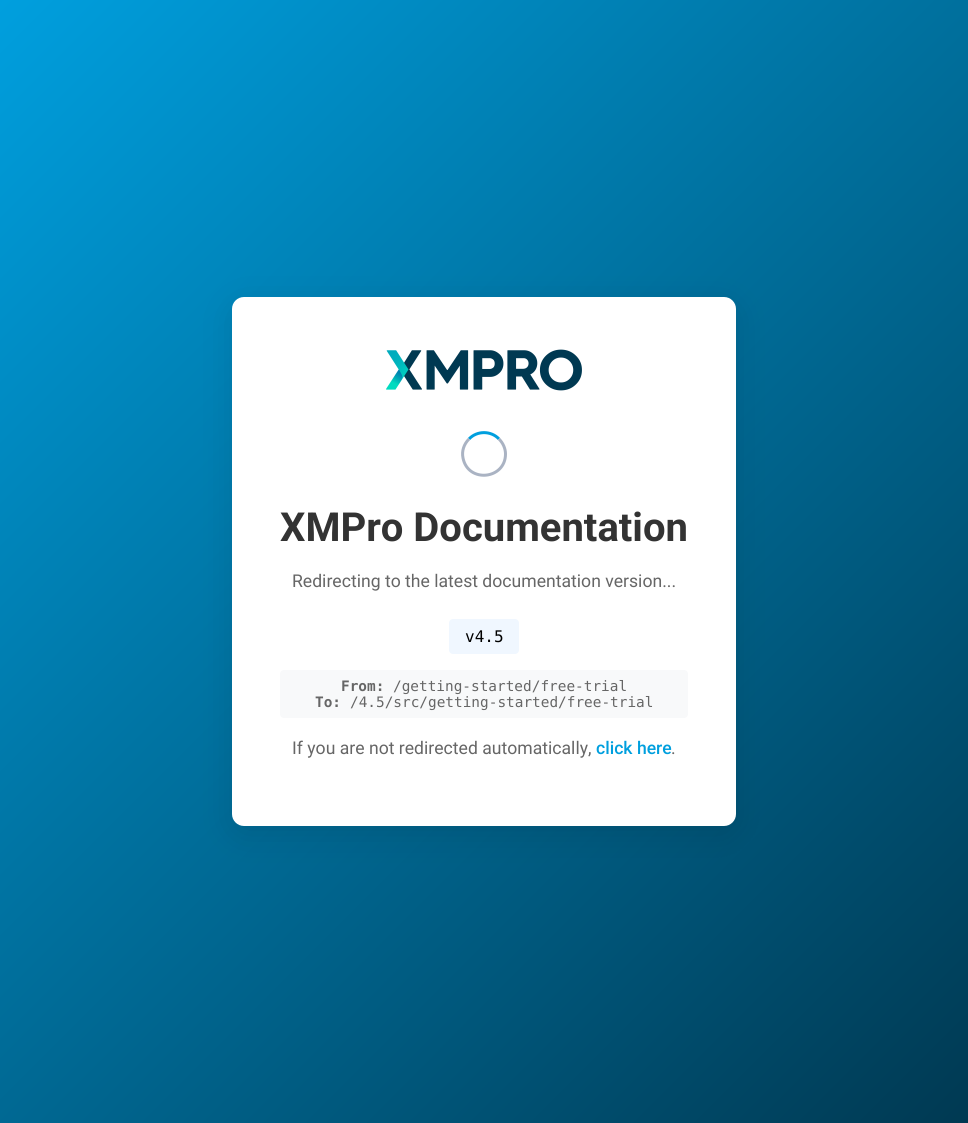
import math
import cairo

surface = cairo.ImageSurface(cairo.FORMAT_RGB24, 968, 1123)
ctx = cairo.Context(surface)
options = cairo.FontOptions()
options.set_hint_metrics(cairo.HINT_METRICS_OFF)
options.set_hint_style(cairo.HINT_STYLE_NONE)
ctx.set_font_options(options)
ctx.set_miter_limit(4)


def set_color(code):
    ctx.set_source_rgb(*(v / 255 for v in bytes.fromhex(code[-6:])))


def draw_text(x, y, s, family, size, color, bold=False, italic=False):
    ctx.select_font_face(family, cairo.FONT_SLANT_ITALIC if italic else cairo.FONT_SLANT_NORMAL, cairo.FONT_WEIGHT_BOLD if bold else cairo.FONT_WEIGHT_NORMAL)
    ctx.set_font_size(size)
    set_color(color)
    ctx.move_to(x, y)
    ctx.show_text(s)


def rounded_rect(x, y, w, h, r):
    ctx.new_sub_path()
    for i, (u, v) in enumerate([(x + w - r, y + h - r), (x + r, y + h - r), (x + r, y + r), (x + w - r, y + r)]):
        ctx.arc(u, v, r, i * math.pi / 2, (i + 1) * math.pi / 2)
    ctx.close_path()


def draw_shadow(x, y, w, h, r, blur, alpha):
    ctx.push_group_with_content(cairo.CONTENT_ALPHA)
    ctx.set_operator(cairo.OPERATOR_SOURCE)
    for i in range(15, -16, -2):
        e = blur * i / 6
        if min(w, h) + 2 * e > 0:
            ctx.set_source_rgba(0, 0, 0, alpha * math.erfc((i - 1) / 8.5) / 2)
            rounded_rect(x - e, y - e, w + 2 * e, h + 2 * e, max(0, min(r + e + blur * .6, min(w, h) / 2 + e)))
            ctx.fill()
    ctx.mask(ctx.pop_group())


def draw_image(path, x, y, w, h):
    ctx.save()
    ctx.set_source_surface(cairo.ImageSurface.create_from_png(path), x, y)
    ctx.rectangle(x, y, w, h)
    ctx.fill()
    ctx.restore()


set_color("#ffffff")
ctx.paint()
gradient = cairo.LinearGradient(-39, 39, 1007, 1084)
gradient.add_color_stop_rgba(0, 0, 0.624, 0.871, 1)
gradient.add_color_stop_rgba(1, 0, 0.224, 0.322, 1)
ctx.set_source(gradient)
ctx.rectangle(0, 0, 968, 1123)
ctx.fill()
set_color("#000000")
draw_shadow(232, 305, 504, 529, 12, 16, 0.1)
set_color("#ffffff")
rounded_rect(232, 297, 504, 529, 12)
ctx.fill()
draw_image("assets/img1.png", 386, 349, 196, 42)
ctx.new_path()
ctx.move_to(469, 439)
ctx.curve_to(477, 430.5, 491, 430.5, 499, 439)
set_color("#009fde")
ctx.set_line_width(3)
ctx.stroke()
ctx.new_path()
ctx.move_to(499, 439)
ctx.curve_to(503, 443, 505.5, 448.5, 505.5, 454)
ctx.curve_to(505.5, 479.5, 468, 483.5, 463, 458)
ctx.curve_to(461.5, 451, 464, 444, 469, 439)
set_color("#aab3c3")
ctx.stroke()
draw_text(280, 541, "XMPro Documentation", "Roboto", 40, "#333333", bold=True)
draw_text(292, 587, "Redirecting to the latest documentation version...", "Roboto", 17.6, "#666666")
set_color("#f0f7ff")
rounded_rect(449, 619, 70, 35, 4)
ctx.fill()
draw_text(465, 642, "v4.5", "DejaVu Sans Mono", 16, "#000000")
set_color("#f8f9fa")
rounded_rect(280, 670, 408, 48, 4)
ctx.fill()
draw_text(341, 691, "From:", "DejaVu Sans Mono", 14.4, "#666666", bold=True)
draw_text(393, 691, "/getting-started/free-trial", "DejaVu Sans Mono", 14.4, "#666666")
draw_text(315, 707, "To:", "DejaVu Sans Mono", 14.4, "#666666", bold=True)
draw_text(350, 707, "/4.5/src/getting-started/free-trial", "DejaVu Sans Mono", 14.4, "#666666")
draw_text(292, 754, "If you are not redirected automatically,", "Roboto", 17.6, "#666666")
draw_text(596, 754, "click here", "Roboto Medium", 17.6, "#009fde")
draw_text(671, 754, ".", "Roboto", 17.6, "#666666")
surface.write_to_png("output.png")
